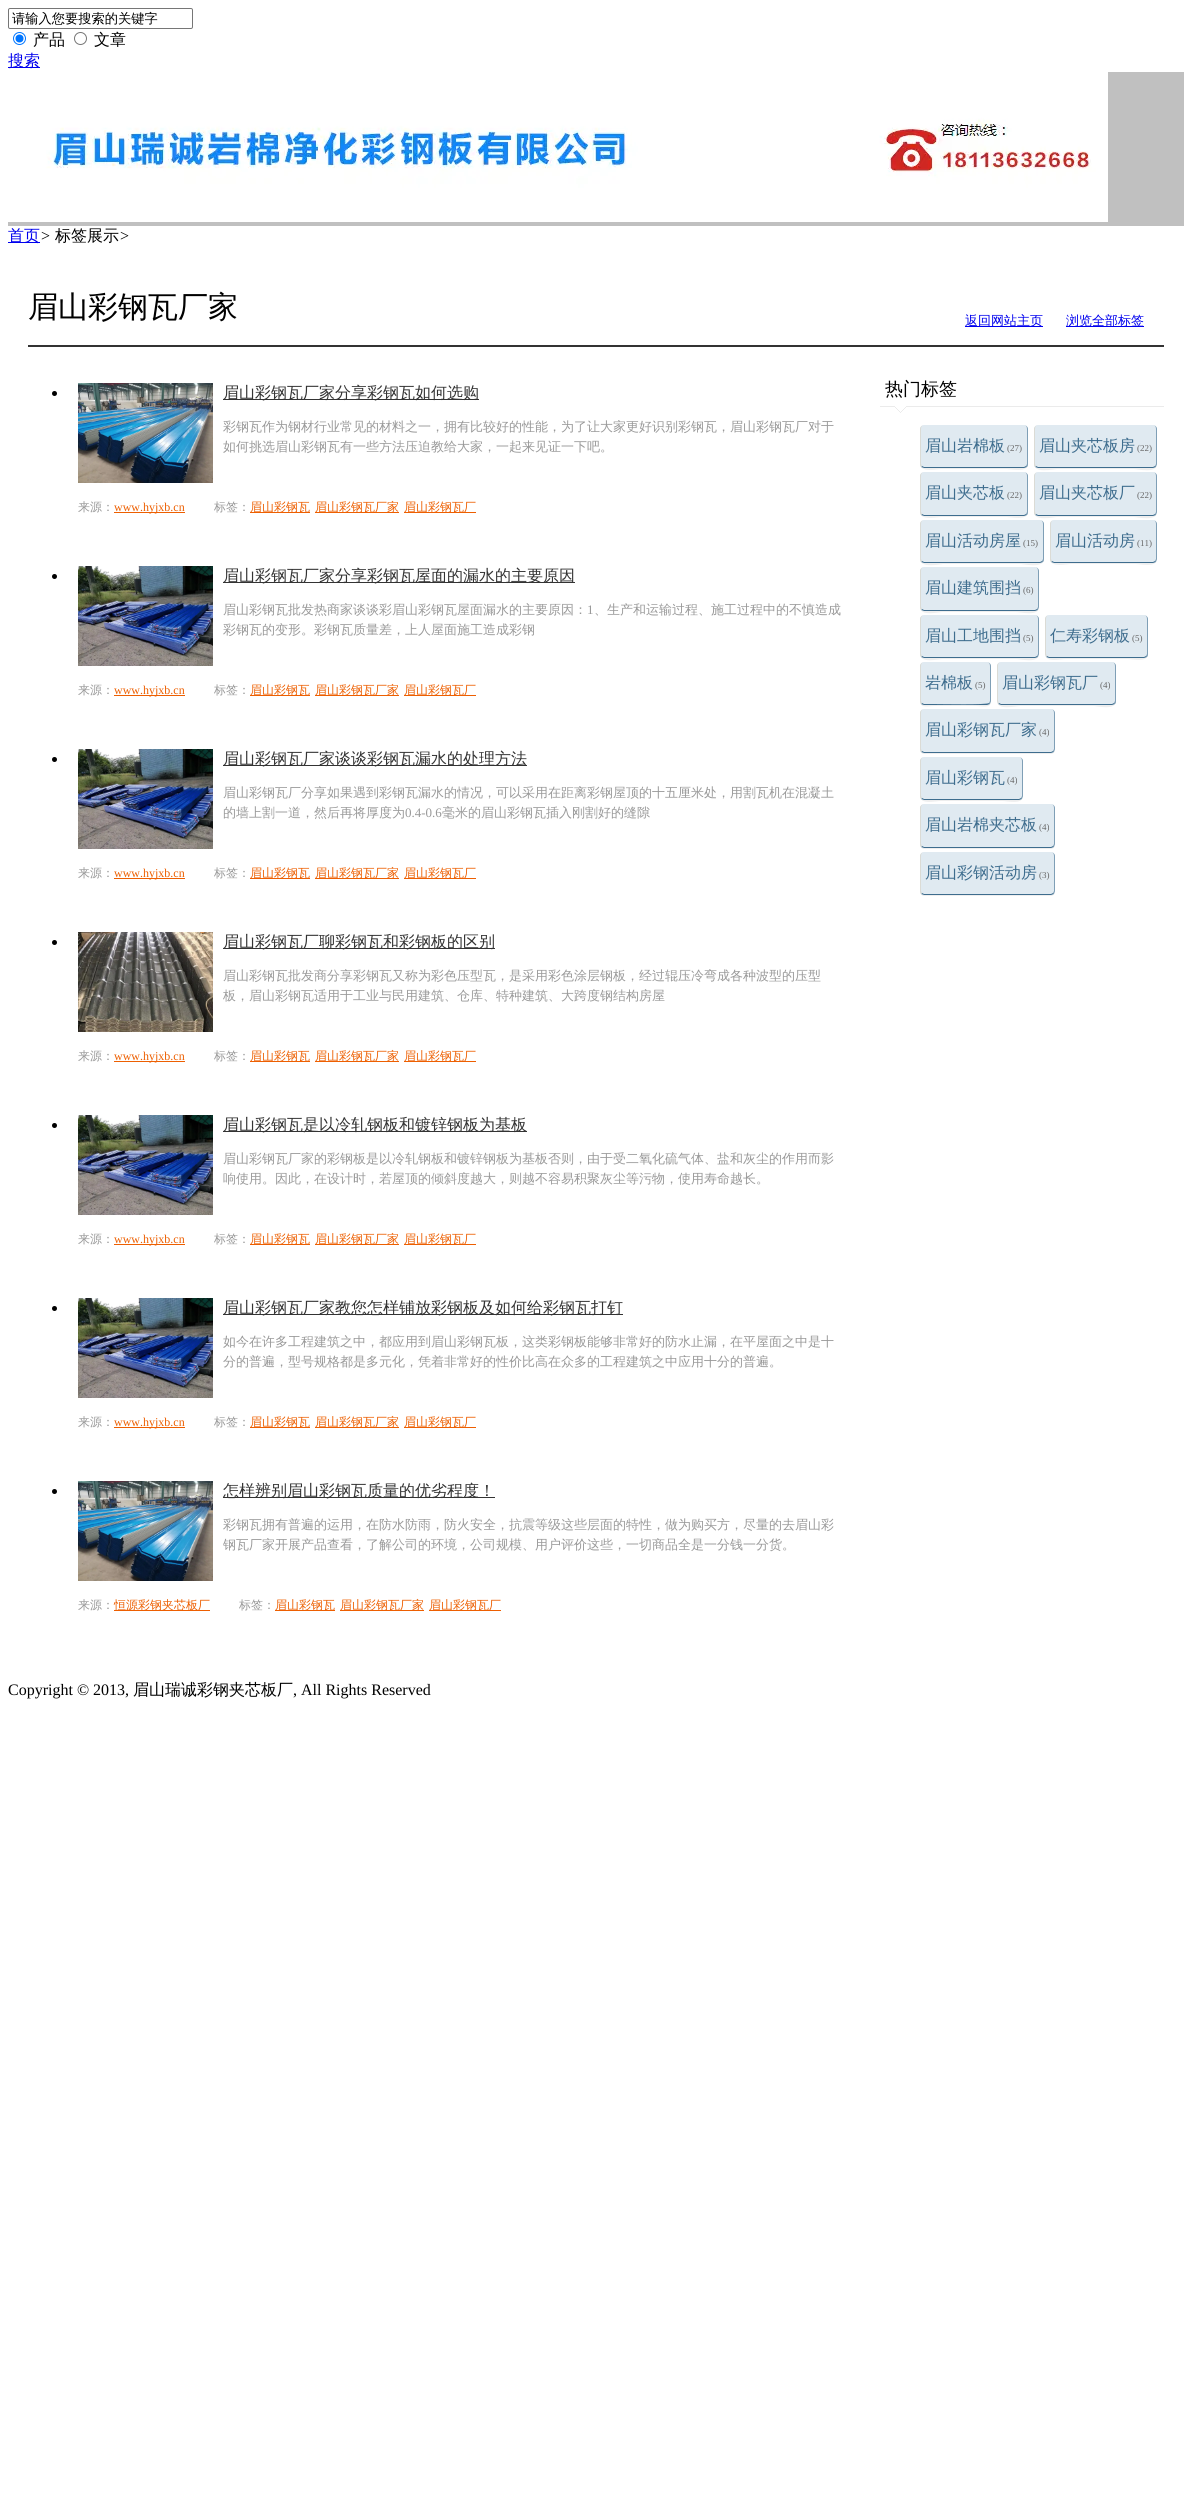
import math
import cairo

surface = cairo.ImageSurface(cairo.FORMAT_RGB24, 1192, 2499)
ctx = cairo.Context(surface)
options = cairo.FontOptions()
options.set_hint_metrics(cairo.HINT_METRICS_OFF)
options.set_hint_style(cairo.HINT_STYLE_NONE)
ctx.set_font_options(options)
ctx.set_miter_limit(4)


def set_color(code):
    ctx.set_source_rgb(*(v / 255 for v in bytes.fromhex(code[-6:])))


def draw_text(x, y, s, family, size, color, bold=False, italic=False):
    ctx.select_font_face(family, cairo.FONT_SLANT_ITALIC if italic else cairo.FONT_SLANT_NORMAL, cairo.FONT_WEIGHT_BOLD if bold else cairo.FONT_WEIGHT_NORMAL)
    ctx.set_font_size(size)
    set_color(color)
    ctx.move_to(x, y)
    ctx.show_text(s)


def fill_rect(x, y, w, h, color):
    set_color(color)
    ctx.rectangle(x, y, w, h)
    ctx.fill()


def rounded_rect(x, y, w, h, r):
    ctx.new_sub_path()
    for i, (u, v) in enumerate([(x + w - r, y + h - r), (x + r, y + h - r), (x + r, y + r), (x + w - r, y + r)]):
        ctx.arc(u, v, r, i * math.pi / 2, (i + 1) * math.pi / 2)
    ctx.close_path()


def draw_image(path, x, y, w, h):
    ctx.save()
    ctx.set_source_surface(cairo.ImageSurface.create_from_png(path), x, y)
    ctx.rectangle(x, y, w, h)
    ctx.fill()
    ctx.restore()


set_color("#ffffff")
ctx.paint()
rounded_rect(8.5, 8.5, 184, 20, 1.5)
set_color("#767676")
ctx.set_line_width(1)
ctx.stroke()
draw_text(12, 23, "请输入您要搜索的关键字", "WenQuanYi Zen Hei Medium", 13.25, "#000000")
ctx.new_path()
ctx.arc(19.5, 38.5, 6, 0, 2 * math.pi)
set_color("#0075ff")
ctx.stroke()
ctx.arc(19.5, 38.5, 4, 0, 2 * math.pi)
ctx.fill()
draw_text(33, 45, "产品", "WenQuanYi Zen Hei Medium", 16, "#000000")
ctx.new_path()
ctx.arc(80.5, 38.5, 6, 0, 2 * math.pi)
set_color("#767676")
ctx.stroke()
draw_text(94, 45, "文章", "WenQuanYi Zen Hei Medium", 16, "#000000")
fill_rect(8, 67, 32, 1, "#0000ee")
draw_text(8, 66, "搜索", "WenQuanYi Zen Hei Medium", 16, "#0000ee")
fill_rect(8, 72, 1176, 154, "#c0c0c0")
draw_image("assets/img1.png", 8, 72, 1100, 150)
fill_rect(8, 242, 32, 1, "#0000ee")
draw_text(8, 241, "首页", "WenQuanYi Zen Hei Medium", 16, "#0000ee")
draw_text(40, 241, ">", "Liberation Serif", 16, "#000000", italic=True)
draw_text(55, 241, "标签展示", "WenQuanYi Zen Hei Medium", 16, "#000000")
draw_text(119, 241, ">", "Liberation Serif", 16, "#000000", italic=True)
fill_rect(28, 345, 1136, 2, "#333333")
draw_text(28, 317, "眉山彩钢瓦厂家", "WenQuanYi Zen Hei Medium", 30, "#000000")
fill_rect(965, 326, 78, 1, "#0000ee")
draw_text(965, 325, "返回网站主页", "WenQuanYi Zen Hei Medium", 13, "#0000ee")
fill_rect(1066, 326, 78, 1, "#0000ee")
draw_text(1066, 325, "浏览全部标签", "WenQuanYi Zen Hei Medium", 13, "#0000ee")
set_color("#000000")
ctx.new_path()
ctx.arc(54.5, 393.5, 2.5, 0, 2 * math.pi)
ctx.fill()
draw_image("assets/img2.png", 78, 383, 135, 100)
fill_rect(223, 399, 256, 1, "#333333")
draw_text(223, 398, "眉山彩钢瓦厂家分享彩钢瓦如何选购", "WenQuanYi Zen Hei Medium", 16, "#333333")
draw_text(223, 431, "彩钢瓦作为钢材行业常见的材料之一，拥有比较好的性能，为了让大家更好识别彩钢瓦，眉山彩钢瓦厂对于", "WenQuanYi Zen Hei Medium", 13, "#999999")
draw_text(223, 451, "如何挑选眉山彩钢瓦有一些方法压迫教给大家，一起来见证一下吧。", "WenQuanYi Zen Hei Medium", 13, "#999999")
draw_text(78, 511, "来源：", "WenQuanYi Zen Hei Medium", 12, "#999999")
fill_rect(114, 512, 71, 1, "#ed5f01")
draw_text(114, 511, "www.hyjxb.cn", "Liberation Serif", 12, "#ed5f01")
draw_text(214, 511, "标签：", "WenQuanYi Zen Hei Medium", 12, "#999999")
fill_rect(250, 512, 60, 1, "#ed5f01")
draw_text(250, 511, "眉山彩钢瓦", "WenQuanYi Zen Hei Medium", 12, "#ed5f01")
fill_rect(315, 512, 84, 1, "#ed5f01")
draw_text(315, 511, "眉山彩钢瓦厂家", "WenQuanYi Zen Hei Medium", 12, "#ed5f01")
fill_rect(404, 512, 72, 1, "#ed5f01")
draw_text(404, 511, "眉山彩钢瓦厂", "WenQuanYi Zen Hei Medium", 12, "#ed5f01")
set_color("#000000")
ctx.new_path()
ctx.arc(54.5, 576.5, 2.5, 0, 2 * math.pi)
ctx.fill()
draw_image("assets/img3.png", 78, 566, 135, 100)
fill_rect(223, 582, 352, 1, "#333333")
draw_text(223, 581, "眉山彩钢瓦厂家分享彩钢瓦屋面的漏水的主要原因", "WenQuanYi Zen Hei Medium", 16, "#333333")
draw_text(223, 614, "眉山彩钢瓦批发热商家谈谈彩眉山彩钢瓦屋面漏水的主要原因：", "WenQuanYi Zen Hei Medium", 13, "#999999")
draw_text(587, 614, "1", "Liberation Serif", 13, "#999999")
draw_text(594, 614, "、生产和运输过程、施工过程中的不慎造成", "WenQuanYi Zen Hei Medium", 13, "#999999")
draw_text(223, 634, "彩钢瓦的变形。彩钢瓦质量差，上人屋面施工造成彩钢", "WenQuanYi Zen Hei Medium", 13, "#999999")
draw_text(78, 694, "来源：", "WenQuanYi Zen Hei Medium", 12, "#999999")
fill_rect(114, 695, 71, 1, "#ed5f01")
draw_text(114, 694, "www.hyjxb.cn", "Liberation Serif", 12, "#ed5f01")
draw_text(214, 694, "标签：", "WenQuanYi Zen Hei Medium", 12, "#999999")
fill_rect(250, 695, 60, 1, "#ed5f01")
draw_text(250, 694, "眉山彩钢瓦", "WenQuanYi Zen Hei Medium", 12, "#ed5f01")
fill_rect(315, 695, 84, 1, "#ed5f01")
draw_text(315, 694, "眉山彩钢瓦厂家", "WenQuanYi Zen Hei Medium", 12, "#ed5f01")
fill_rect(404, 695, 72, 1, "#ed5f01")
draw_text(404, 694, "眉山彩钢瓦厂", "WenQuanYi Zen Hei Medium", 12, "#ed5f01")
set_color("#000000")
ctx.new_path()
ctx.arc(54.5, 759.5, 2.5, 0, 2 * math.pi)
ctx.fill()
draw_image("assets/img3.png", 78, 749, 135, 100)
fill_rect(223, 765, 304, 1, "#333333")
draw_text(223, 764, "眉山彩钢瓦厂家谈谈彩钢瓦漏水的处理方法", "WenQuanYi Zen Hei Medium", 16, "#333333")
draw_text(223, 797, "眉山彩钢瓦厂分享如果遇到彩钢瓦漏水的情况，可以采用在距离彩钢屋顶的十五厘米处，用割瓦机在混凝土", "WenQuanYi Zen Hei Medium", 13, "#999999")
draw_text(223, 817, "的墙上割一道，然后再将厚度为", "WenQuanYi Zen Hei Medium", 13, "#999999")
draw_text(405, 817, "0.4-0.6", "Liberation Serif", 13, "#999999")
draw_text(442, 817, "毫米的眉山彩钢瓦插入刚割好的缝隙", "WenQuanYi Zen Hei Medium", 13, "#999999")
draw_text(78, 877, "来源：", "WenQuanYi Zen Hei Medium", 12, "#999999")
fill_rect(114, 878, 71, 1, "#ed5f01")
draw_text(114, 877, "www.hyjxb.cn", "Liberation Serif", 12, "#ed5f01")
draw_text(214, 877, "标签：", "WenQuanYi Zen Hei Medium", 12, "#999999")
fill_rect(250, 878, 60, 1, "#ed5f01")
draw_text(250, 877, "眉山彩钢瓦", "WenQuanYi Zen Hei Medium", 12, "#ed5f01")
fill_rect(315, 878, 84, 1, "#ed5f01")
draw_text(315, 877, "眉山彩钢瓦厂家", "WenQuanYi Zen Hei Medium", 12, "#ed5f01")
fill_rect(404, 878, 72, 1, "#ed5f01")
draw_text(404, 877, "眉山彩钢瓦厂", "WenQuanYi Zen Hei Medium", 12, "#ed5f01")
set_color("#000000")
ctx.new_path()
ctx.arc(54.5, 942.5, 2.5, 0, 2 * math.pi)
ctx.fill()
draw_image("assets/img4.png", 78, 932, 135, 100)
fill_rect(223, 948, 272, 1, "#333333")
draw_text(223, 947, "眉山彩钢瓦厂聊彩钢瓦和彩钢板的区别", "WenQuanYi Zen Hei Medium", 16, "#333333")
draw_text(223, 980, "眉山彩钢瓦批发商分享彩钢瓦又称为彩色压型瓦，是采用彩色涂层钢板，经过辊压冷弯成各种波型的压型", "WenQuanYi Zen Hei Medium", 13, "#999999")
draw_text(223, 1000, "板，眉山彩钢瓦适用于工业与民用建筑、仓库、特种建筑、大跨度钢结构房屋", "WenQuanYi Zen Hei Medium", 13, "#999999")
draw_text(78, 1060, "来源：", "WenQuanYi Zen Hei Medium", 12, "#999999")
fill_rect(114, 1061, 71, 1, "#ed5f01")
draw_text(114, 1060, "www.hyjxb.cn", "Liberation Serif", 12, "#ed5f01")
draw_text(214, 1060, "标签：", "WenQuanYi Zen Hei Medium", 12, "#999999")
fill_rect(250, 1061, 60, 1, "#ed5f01")
draw_text(250, 1060, "眉山彩钢瓦", "WenQuanYi Zen Hei Medium", 12, "#ed5f01")
fill_rect(315, 1061, 84, 1, "#ed5f01")
draw_text(315, 1060, "眉山彩钢瓦厂家", "WenQuanYi Zen Hei Medium", 12, "#ed5f01")
fill_rect(404, 1061, 72, 1, "#ed5f01")
draw_text(404, 1060, "眉山彩钢瓦厂", "WenQuanYi Zen Hei Medium", 12, "#ed5f01")
set_color("#000000")
ctx.new_path()
ctx.arc(54.5, 1125.5, 2.5, 0, 2 * math.pi)
ctx.fill()
draw_image("assets/img3.png", 78, 1115, 135, 100)
fill_rect(223, 1131, 304, 1, "#333333")
draw_text(223, 1130, "眉山彩钢瓦是以冷轧钢板和镀锌钢板为基板", "WenQuanYi Zen Hei Medium", 16, "#333333")
draw_text(223, 1163, "眉山彩钢瓦厂家的彩钢板是以冷轧钢板和镀锌钢板为基板否则，由于受二氧化硫气体、盐和灰尘的作用而影", "WenQuanYi Zen Hei Medium", 13, "#999999")
draw_text(223, 1183, "响使用。因此，在设计时，若屋顶的倾斜度越大，则越不容易积聚灰尘等污物，使用寿命越长。", "WenQuanYi Zen Hei Medium", 13, "#999999")
draw_text(78, 1243, "来源：", "WenQuanYi Zen Hei Medium", 12, "#999999")
fill_rect(114, 1244, 71, 1, "#ed5f01")
draw_text(114, 1243, "www.hyjxb.cn", "Liberation Serif", 12, "#ed5f01")
draw_text(214, 1243, "标签：", "WenQuanYi Zen Hei Medium", 12, "#999999")
fill_rect(250, 1244, 60, 1, "#ed5f01")
draw_text(250, 1243, "眉山彩钢瓦", "WenQuanYi Zen Hei Medium", 12, "#ed5f01")
fill_rect(315, 1244, 84, 1, "#ed5f01")
draw_text(315, 1243, "眉山彩钢瓦厂家", "WenQuanYi Zen Hei Medium", 12, "#ed5f01")
fill_rect(404, 1244, 72, 1, "#ed5f01")
draw_text(404, 1243, "眉山彩钢瓦厂", "WenQuanYi Zen Hei Medium", 12, "#ed5f01")
set_color("#000000")
ctx.new_path()
ctx.arc(54.5, 1308.5, 2.5, 0, 2 * math.pi)
ctx.fill()
draw_image("assets/img3.png", 78, 1298, 135, 100)
fill_rect(223, 1314, 400, 1, "#333333")
draw_text(223, 1313, "眉山彩钢瓦厂家教您怎样铺放彩钢板及如何给彩钢瓦打钉", "WenQuanYi Zen Hei Medium", 16, "#333333")
draw_text(223, 1346, "如今在许多工程建筑之中，都应用到眉山彩钢瓦板，这类彩钢板能够非常好的防水止漏，在平屋面之中是十", "WenQuanYi Zen Hei Medium", 13, "#999999")
draw_text(223, 1366, "分的普遍，型号规格都是多元化，凭着非常好的性价比高在众多的工程建筑之中应用十分的普遍。", "WenQuanYi Zen Hei Medium", 13, "#999999")
draw_text(78, 1426, "来源：", "WenQuanYi Zen Hei Medium", 12, "#999999")
fill_rect(114, 1427, 71, 1, "#ed5f01")
draw_text(114, 1426, "www.hyjxb.cn", "Liberation Serif", 12, "#ed5f01")
draw_text(214, 1426, "标签：", "WenQuanYi Zen Hei Medium", 12, "#999999")
fill_rect(250, 1427, 60, 1, "#ed5f01")
draw_text(250, 1426, "眉山彩钢瓦", "WenQuanYi Zen Hei Medium", 12, "#ed5f01")
fill_rect(315, 1427, 84, 1, "#ed5f01")
draw_text(315, 1426, "眉山彩钢瓦厂家", "WenQuanYi Zen Hei Medium", 12, "#ed5f01")
fill_rect(404, 1427, 72, 1, "#ed5f01")
draw_text(404, 1426, "眉山彩钢瓦厂", "WenQuanYi Zen Hei Medium", 12, "#ed5f01")
set_color("#000000")
ctx.new_path()
ctx.arc(54.5, 1491.5, 2.5, 0, 2 * math.pi)
ctx.fill()
draw_image("assets/img2.png", 78, 1481, 135, 100)
fill_rect(223, 1497, 272, 1, "#333333")
draw_text(223, 1496, "怎样辨别眉山彩钢瓦质量的优劣程度！", "WenQuanYi Zen Hei Medium", 16, "#333333")
draw_text(223, 1529, "彩钢瓦拥有普遍的运用，在防水防雨，防火安全，抗震等级这些层面的特性，做为购买方，尽量的去眉山彩", "WenQuanYi Zen Hei Medium", 13, "#999999")
draw_text(223, 1549, "钢瓦厂家开展产品查看，了解公司的环境，公司规模、用户评价这些，一切商品全是一分钱一分货。", "WenQuanYi Zen Hei Medium", 13, "#999999")
draw_text(78, 1609, "来源：", "WenQuanYi Zen Hei Medium", 12, "#999999")
fill_rect(114, 1610, 96, 1, "#ed5f01")
draw_text(114, 1609, "恒源彩钢夹芯板厂", "WenQuanYi Zen Hei Medium", 12, "#ed5f01")
draw_text(239, 1609, "标签：", "WenQuanYi Zen Hei Medium", 12, "#999999")
fill_rect(275, 1610, 60, 1, "#ed5f01")
draw_text(275, 1609, "眉山彩钢瓦", "WenQuanYi Zen Hei Medium", 12, "#ed5f01")
fill_rect(340, 1610, 84, 1, "#ed5f01")
draw_text(340, 1609, "眉山彩钢瓦厂家", "WenQuanYi Zen Hei Medium", 12, "#ed5f01")
fill_rect(429, 1610, 72, 1, "#ed5f01")
draw_text(429, 1609, "眉山彩钢瓦厂", "WenQuanYi Zen Hei Medium", 12, "#ed5f01")
fill_rect(880, 406, 284, 1, "#ebebeb")
draw_text(885, 395, "热门标签", "WenQuanYi Zen Hei Medium", 18, "#000000")
draw_image("assets/img5.png", 895, 406, 11, 7)
set_color("#eeeeee")
ctx.new_path()
ctx.move_to(920, 464)
ctx.curve_to(920, 473, 937, 469, 941, 469)
ctx.line_to(1007, 469)
ctx.curve_to(1011, 469, 1028, 473, 1028, 464)
ctx.curve_to(1028, 466, 1026, 468, 1024, 468)
ctx.line_to(924, 468)
ctx.curve_to(922, 468, 920, 466, 920, 464)
ctx.close_path()
ctx.fill()
set_color("#e0eaf1")
rounded_rect(920, 425, 108, 43, 4)
ctx.fill()
set_color("#7f9fb6")
ctx.new_path()
ctx.move_to(1028, 429)
ctx.curve_to(1028, 427, 1026, 425, 1024, 425)
ctx.curve_to(1026, 425, 1027, 427, 1027, 429)
ctx.line_to(1027, 464)
ctx.line_to(1026, 466)
ctx.line_to(1027, 467)
ctx.curve_to(1028, 466, 1028, 465, 1028, 464)
ctx.close_path()
ctx.fill()
set_color("#3e6d8e")
ctx.new_path()
ctx.move_to(924, 468)
ctx.line_to(1024, 468)
ctx.line_to(1027, 467)
ctx.line_to(1026, 466)
ctx.line_to(1024, 467)
ctx.line_to(924, 467)
ctx.line_to(922, 466)
ctx.line_to(921, 467)
ctx.close_path()
ctx.fill()
set_color("#dbdbd5")
ctx.new_path()
ctx.move_to(924, 425)
ctx.curve_to(922, 425, 920, 427, 920, 429)
ctx.line_to(920, 464)
ctx.curve_to(920, 465, 920, 466, 921, 467)
ctx.line_to(922, 466)
ctx.line_to(921, 464)
ctx.line_to(921, 429)
ctx.curve_to(921, 427, 922, 425, 924, 425)
ctx.close_path()
ctx.fill()
draw_text(925, 451, "眉山岩棉板", "WenQuanYi Zen Hei Medium", 16, "#3e6d8e")
draw_text(1007, 451, "(27)", "Liberation Serif", 9, "#666666")
set_color("#eeeeee")
ctx.new_path()
ctx.move_to(1034, 464)
ctx.curve_to(1034, 474, 1054, 469, 1057, 469)
ctx.line_to(1134, 469)
ctx.curve_to(1137, 469, 1157, 474, 1157, 464)
ctx.curve_to(1157, 466, 1155, 468, 1153, 468)
ctx.line_to(1038, 468)
ctx.curve_to(1036, 468, 1034, 466, 1034, 464)
ctx.close_path()
ctx.fill()
set_color("#e0eaf1")
rounded_rect(1034, 425, 123, 43, 4)
ctx.fill()
set_color("#7f9fb6")
ctx.new_path()
ctx.move_to(1157, 429)
ctx.curve_to(1157, 427, 1155, 425, 1153, 425)
ctx.curve_to(1155, 425, 1156, 427, 1156, 429)
ctx.line_to(1156, 464)
ctx.line_to(1155, 466)
ctx.line_to(1156, 467)
ctx.curve_to(1156, 466, 1157, 465, 1157, 464)
ctx.close_path()
ctx.fill()
set_color("#3e6d8e")
ctx.new_path()
ctx.move_to(1038, 468)
ctx.line_to(1153, 468)
ctx.line_to(1156, 467)
ctx.line_to(1155, 466)
ctx.line_to(1153, 467)
ctx.line_to(1038, 467)
ctx.line_to(1036, 466)
ctx.line_to(1035, 467)
ctx.close_path()
ctx.fill()
set_color("#dbdbd5")
ctx.new_path()
ctx.move_to(1038, 425)
ctx.curve_to(1036, 425, 1034, 427, 1034, 429)
ctx.line_to(1034, 464)
ctx.curve_to(1034, 465, 1034, 466, 1035, 467)
ctx.line_to(1036, 466)
ctx.line_to(1035, 464)
ctx.line_to(1035, 429)
ctx.curve_to(1035, 427, 1036, 425, 1038, 425)
ctx.close_path()
ctx.fill()
draw_text(1039, 451, "眉山夹芯板房", "WenQuanYi Zen Hei Medium", 16, "#3e6d8e")
draw_text(1137, 451, "(22)", "Liberation Serif", 9, "#666666")
set_color("#eeeeee")
ctx.new_path()
ctx.move_to(920, 512)
ctx.curve_to(920, 521, 937, 517, 941, 517)
ctx.line_to(1007, 517)
ctx.curve_to(1011, 517, 1028, 521, 1028, 512)
ctx.curve_to(1028, 514, 1026, 516, 1024, 516)
ctx.line_to(924, 516)
ctx.curve_to(922, 516, 920, 514, 920, 512)
ctx.close_path()
ctx.fill()
set_color("#e0eaf1")
rounded_rect(920, 472, 108, 44, 4)
ctx.fill()
set_color("#7f9fb6")
ctx.new_path()
ctx.move_to(1028, 476)
ctx.curve_to(1028, 474, 1026, 472, 1024, 472)
ctx.curve_to(1026, 472, 1027, 474, 1027, 476)
ctx.line_to(1027, 512)
ctx.line_to(1026, 514)
ctx.line_to(1027, 515)
ctx.curve_to(1028, 514, 1028, 513, 1028, 512)
ctx.close_path()
ctx.fill()
set_color("#3e6d8e")
ctx.new_path()
ctx.move_to(924, 516)
ctx.line_to(1024, 516)
ctx.line_to(1027, 515)
ctx.line_to(1026, 514)
ctx.line_to(1024, 515)
ctx.line_to(924, 515)
ctx.line_to(922, 514)
ctx.line_to(921, 515)
ctx.close_path()
ctx.fill()
set_color("#dbdbd5")
ctx.new_path()
ctx.move_to(924, 472)
ctx.curve_to(922, 472, 920, 474, 920, 476)
ctx.line_to(920, 512)
ctx.curve_to(920, 513, 920, 514, 921, 515)
ctx.line_to(922, 514)
ctx.line_to(921, 512)
ctx.line_to(921, 476)
ctx.curve_to(921, 474, 922, 472, 924, 472)
ctx.close_path()
ctx.fill()
draw_text(925, 498, "眉山夹芯板", "WenQuanYi Zen Hei Medium", 16, "#3e6d8e")
draw_text(1007, 498, "(22)", "Liberation Serif", 9, "#666666")
set_color("#eeeeee")
ctx.new_path()
ctx.move_to(1034, 512)
ctx.curve_to(1034, 522, 1054, 517, 1057, 517)
ctx.line_to(1134, 517)
ctx.curve_to(1137, 517, 1157, 522, 1157, 512)
ctx.curve_to(1157, 514, 1155, 516, 1153, 516)
ctx.line_to(1038, 516)
ctx.curve_to(1036, 516, 1034, 514, 1034, 512)
ctx.close_path()
ctx.fill()
set_color("#e0eaf1")
rounded_rect(1034, 472, 123, 44, 4)
ctx.fill()
set_color("#7f9fb6")
ctx.new_path()
ctx.move_to(1157, 476)
ctx.curve_to(1157, 474, 1155, 472, 1153, 472)
ctx.curve_to(1155, 472, 1156, 474, 1156, 476)
ctx.line_to(1156, 512)
ctx.line_to(1155, 514)
ctx.line_to(1156, 515)
ctx.curve_to(1156, 514, 1157, 513, 1157, 512)
ctx.close_path()
ctx.fill()
set_color("#3e6d8e")
ctx.new_path()
ctx.move_to(1038, 516)
ctx.line_to(1153, 516)
ctx.line_to(1156, 515)
ctx.line_to(1155, 514)
ctx.line_to(1153, 515)
ctx.line_to(1038, 515)
ctx.line_to(1036, 514)
ctx.line_to(1035, 515)
ctx.close_path()
ctx.fill()
set_color("#dbdbd5")
ctx.new_path()
ctx.move_to(1038, 472)
ctx.curve_to(1036, 472, 1034, 474, 1034, 476)
ctx.line_to(1034, 512)
ctx.curve_to(1034, 513, 1034, 514, 1035, 515)
ctx.line_to(1036, 514)
ctx.line_to(1035, 512)
ctx.line_to(1035, 476)
ctx.curve_to(1035, 474, 1036, 472, 1038, 472)
ctx.close_path()
ctx.fill()
draw_text(1039, 498, "眉山夹芯板厂", "WenQuanYi Zen Hei Medium", 16, "#3e6d8e")
draw_text(1137, 498, "(22)", "Liberation Serif", 9, "#666666")
set_color("#eeeeee")
ctx.new_path()
ctx.move_to(920, 559)
ctx.curve_to(920, 569, 941, 564, 943, 564)
ctx.line_to(1021, 564)
ctx.curve_to(1023, 564, 1044, 569, 1044, 559)
ctx.curve_to(1044, 561, 1042, 563, 1040, 563)
ctx.line_to(924, 563)
ctx.curve_to(922, 563, 920, 561, 920, 559)
ctx.close_path()
ctx.fill()
set_color("#e0eaf1")
rounded_rect(920, 520, 124, 43, 4)
ctx.fill()
set_color("#7f9fb6")
ctx.new_path()
ctx.move_to(1044, 524)
ctx.curve_to(1044, 522, 1042, 520, 1040, 520)
ctx.curve_to(1042, 520, 1043, 522, 1043, 524)
ctx.line_to(1043, 559)
ctx.line_to(1042, 561)
ctx.line_to(1043, 562)
ctx.curve_to(1044, 561, 1044, 560, 1044, 559)
ctx.close_path()
ctx.fill()
set_color("#3e6d8e")
ctx.new_path()
ctx.move_to(924, 563)
ctx.line_to(1040, 563)
ctx.line_to(1043, 562)
ctx.line_to(1042, 561)
ctx.line_to(1040, 562)
ctx.line_to(924, 562)
ctx.line_to(922, 561)
ctx.line_to(921, 562)
ctx.close_path()
ctx.fill()
set_color("#dbdbd5")
ctx.new_path()
ctx.move_to(924, 520)
ctx.curve_to(922, 520, 920, 522, 920, 524)
ctx.line_to(920, 559)
ctx.curve_to(920, 560, 920, 561, 921, 562)
ctx.line_to(922, 561)
ctx.line_to(921, 559)
ctx.line_to(921, 524)
ctx.curve_to(921, 522, 922, 520, 924, 520)
ctx.close_path()
ctx.fill()
draw_text(925, 546, "眉山活动房屋", "WenQuanYi Zen Hei Medium", 16, "#3e6d8e")
draw_text(1023, 546, "(15)", "Liberation Serif", 9, "#666666")
set_color("#eeeeee")
ctx.new_path()
ctx.move_to(1050, 559)
ctx.curve_to(1050, 568, 1067, 564, 1070, 564)
ctx.line_to(1136, 564)
ctx.curve_to(1140, 564, 1157, 568, 1157, 559)
ctx.curve_to(1157, 561, 1155, 563, 1153, 563)
ctx.line_to(1054, 563)
ctx.curve_to(1052, 563, 1050, 561, 1050, 559)
ctx.close_path()
ctx.fill()
set_color("#e0eaf1")
rounded_rect(1050, 520, 107, 43, 4)
ctx.fill()
set_color("#7f9fb6")
ctx.new_path()
ctx.move_to(1157, 524)
ctx.curve_to(1157, 522, 1155, 520, 1153, 520)
ctx.curve_to(1155, 520, 1156, 522, 1156, 524)
ctx.line_to(1156, 559)
ctx.line_to(1155, 561)
ctx.line_to(1156, 562)
ctx.curve_to(1156, 561, 1157, 560, 1157, 559)
ctx.close_path()
ctx.fill()
set_color("#3e6d8e")
ctx.new_path()
ctx.move_to(1054, 563)
ctx.line_to(1153, 563)
ctx.line_to(1156, 562)
ctx.line_to(1155, 561)
ctx.line_to(1153, 562)
ctx.line_to(1054, 562)
ctx.line_to(1052, 561)
ctx.line_to(1051, 562)
ctx.close_path()
ctx.fill()
set_color("#dbdbd5")
ctx.new_path()
ctx.move_to(1054, 520)
ctx.curve_to(1052, 520, 1050, 522, 1050, 524)
ctx.line_to(1050, 559)
ctx.curve_to(1050, 560, 1050, 561, 1051, 562)
ctx.line_to(1052, 561)
ctx.line_to(1051, 559)
ctx.line_to(1051, 524)
ctx.curve_to(1051, 522, 1052, 520, 1054, 520)
ctx.close_path()
ctx.fill()
draw_text(1055, 546, "眉山活动房", "WenQuanYi Zen Hei Medium", 16, "#3e6d8e")
draw_text(1137, 546, "(11)", "Liberation Serif", 9, "#666666")
set_color("#eeeeee")
ctx.new_path()
ctx.move_to(920, 607)
ctx.curve_to(920, 617, 939, 612, 942, 612)
ctx.line_to(1016, 612)
ctx.curve_to(1020, 612, 1039, 617, 1039, 607)
ctx.curve_to(1039, 609, 1037, 611, 1035, 611)
ctx.line_to(924, 611)
ctx.curve_to(922, 611, 920, 609, 920, 607)
ctx.close_path()
ctx.fill()
set_color("#e0eaf1")
rounded_rect(920, 567, 119, 44, 4)
ctx.fill()
set_color("#7f9fb6")
ctx.new_path()
ctx.move_to(1039, 571)
ctx.curve_to(1039, 569, 1037, 567, 1035, 567)
ctx.curve_to(1037, 567, 1038, 569, 1038, 571)
ctx.line_to(1038, 607)
ctx.line_to(1037, 609)
ctx.line_to(1038, 610)
ctx.curve_to(1038, 609, 1039, 608, 1039, 607)
ctx.close_path()
ctx.fill()
set_color("#3e6d8e")
ctx.new_path()
ctx.move_to(924, 611)
ctx.line_to(1035, 611)
ctx.line_to(1038, 610)
ctx.line_to(1037, 609)
ctx.line_to(1035, 610)
ctx.line_to(924, 610)
ctx.line_to(922, 609)
ctx.line_to(921, 610)
ctx.close_path()
ctx.fill()
set_color("#dbdbd5")
ctx.new_path()
ctx.move_to(924, 567)
ctx.curve_to(922, 567, 920, 569, 920, 571)
ctx.line_to(920, 607)
ctx.curve_to(920, 608, 920, 609, 921, 610)
ctx.line_to(922, 609)
ctx.line_to(921, 607)
ctx.line_to(921, 571)
ctx.curve_to(921, 569, 922, 567, 924, 567)
ctx.close_path()
ctx.fill()
draw_text(925, 593, "眉山建筑围挡", "WenQuanYi Zen Hei Medium", 16, "#3e6d8e")
draw_text(1023, 593, "(6)", "Liberation Serif", 9, "#666666")
set_color("#eeeeee")
ctx.new_path()
ctx.move_to(920, 654)
ctx.curve_to(920, 664, 939, 659, 942, 659)
ctx.line_to(1016, 659)
ctx.curve_to(1020, 659, 1039, 664, 1039, 654)
ctx.curve_to(1039, 656, 1037, 658, 1035, 658)
ctx.line_to(924, 658)
ctx.curve_to(922, 658, 920, 656, 920, 654)
ctx.close_path()
ctx.fill()
set_color("#e0eaf1")
rounded_rect(920, 615, 119, 43, 4)
ctx.fill()
set_color("#7f9fb6")
ctx.new_path()
ctx.move_to(1039, 619)
ctx.curve_to(1039, 617, 1037, 615, 1035, 615)
ctx.curve_to(1037, 615, 1038, 617, 1038, 619)
ctx.line_to(1038, 654)
ctx.line_to(1037, 656)
ctx.line_to(1038, 657)
ctx.curve_to(1038, 656, 1039, 655, 1039, 654)
ctx.close_path()
ctx.fill()
set_color("#3e6d8e")
ctx.new_path()
ctx.move_to(924, 658)
ctx.line_to(1035, 658)
ctx.line_to(1038, 657)
ctx.line_to(1037, 656)
ctx.line_to(1035, 657)
ctx.line_to(924, 657)
ctx.line_to(922, 656)
ctx.line_to(921, 657)
ctx.close_path()
ctx.fill()
set_color("#dbdbd5")
ctx.new_path()
ctx.move_to(924, 615)
ctx.curve_to(922, 615, 920, 617, 920, 619)
ctx.line_to(920, 654)
ctx.curve_to(920, 655, 920, 656, 921, 657)
ctx.line_to(922, 656)
ctx.line_to(921, 654)
ctx.line_to(921, 619)
ctx.curve_to(921, 617, 922, 615, 924, 615)
ctx.close_path()
ctx.fill()
draw_text(925, 641, "眉山工地围挡", "WenQuanYi Zen Hei Medium", 16, "#3e6d8e")
draw_text(1023, 641, "(5)", "Liberation Serif", 9, "#666666")
set_color("#eeeeee")
ctx.new_path()
ctx.move_to(1045, 654)
ctx.curve_to(1045, 663, 1061, 659, 1065, 659)
ctx.line_to(1128, 659)
ctx.curve_to(1132, 659, 1148, 663, 1148, 654)
ctx.curve_to(1148, 656, 1146, 658, 1144, 658)
ctx.line_to(1049, 658)
ctx.curve_to(1047, 658, 1045, 656, 1045, 654)
ctx.close_path()
ctx.fill()
set_color("#e0eaf1")
rounded_rect(1045, 615, 103, 43, 4)
ctx.fill()
set_color("#7f9fb6")
ctx.new_path()
ctx.move_to(1148, 619)
ctx.curve_to(1148, 617, 1146, 615, 1144, 615)
ctx.curve_to(1146, 615, 1147, 617, 1147, 619)
ctx.line_to(1147, 654)
ctx.line_to(1146, 656)
ctx.line_to(1147, 657)
ctx.curve_to(1148, 656, 1148, 655, 1148, 654)
ctx.close_path()
ctx.fill()
set_color("#3e6d8e")
ctx.new_path()
ctx.move_to(1049, 658)
ctx.line_to(1144, 658)
ctx.line_to(1147, 657)
ctx.line_to(1146, 656)
ctx.line_to(1144, 657)
ctx.line_to(1049, 657)
ctx.line_to(1047, 656)
ctx.line_to(1046, 657)
ctx.close_path()
ctx.fill()
set_color("#dbdbd5")
ctx.new_path()
ctx.move_to(1049, 615)
ctx.curve_to(1047, 615, 1045, 617, 1045, 619)
ctx.line_to(1045, 654)
ctx.curve_to(1045, 655, 1046, 656, 1046, 657)
ctx.line_to(1047, 656)
ctx.line_to(1046, 654)
ctx.line_to(1046, 619)
ctx.curve_to(1046, 617, 1047, 615, 1049, 615)
ctx.close_path()
ctx.fill()
draw_text(1050, 641, "仁寿彩钢板", "WenQuanYi Zen Hei Medium", 16, "#3e6d8e")
draw_text(1132, 641, "(5)", "Liberation Serif", 9, "#666666")
set_color("#eeeeee")
ctx.new_path()
ctx.move_to(920, 701)
ctx.curve_to(920, 709, 929, 706, 934, 706)
ctx.line_to(976, 706)
ctx.curve_to(982, 706, 991, 709, 991, 701)
ctx.curve_to(991, 703, 989, 705, 987, 705)
ctx.line_to(924, 705)
ctx.curve_to(922, 705, 920, 703, 920, 701)
ctx.close_path()
ctx.fill()
set_color("#e0eaf1")
rounded_rect(920, 662, 71, 43, 4)
ctx.fill()
set_color("#7f9fb6")
ctx.new_path()
ctx.move_to(991, 666)
ctx.curve_to(991, 664, 989, 662, 987, 662)
ctx.curve_to(989, 662, 990, 664, 990, 666)
ctx.line_to(990, 701)
ctx.line_to(989, 703)
ctx.line_to(990, 704)
ctx.curve_to(990, 703, 991, 702, 991, 701)
ctx.close_path()
ctx.fill()
set_color("#3e6d8e")
ctx.new_path()
ctx.move_to(924, 705)
ctx.line_to(987, 705)
ctx.line_to(990, 704)
ctx.line_to(989, 703)
ctx.curve_to(987, 705, 941, 704, 934, 704)
ctx.line_to(924, 704)
ctx.line_to(922, 703)
ctx.line_to(921, 704)
ctx.close_path()
ctx.fill()
set_color("#dbdbd5")
ctx.new_path()
ctx.move_to(924, 662)
ctx.curve_to(922, 662, 920, 664, 920, 666)
ctx.line_to(920, 701)
ctx.curve_to(920, 702, 920, 703, 921, 704)
ctx.line_to(922, 703)
ctx.line_to(921, 701)
ctx.line_to(921, 666)
ctx.curve_to(921, 664, 922, 662, 924, 662)
ctx.close_path()
ctx.fill()
draw_text(925, 688, "岩棉板", "WenQuanYi Zen Hei Medium", 16, "#3e6d8e")
draw_text(975, 688, "(5)", "Liberation Serif", 9, "#666666")
set_color("#eeeeee")
ctx.new_path()
ctx.move_to(997, 701)
ctx.curve_to(997, 711, 1016, 706, 1020, 706)
ctx.line_to(1094, 706)
ctx.curve_to(1097, 706, 1116, 711, 1116, 701)
ctx.curve_to(1116, 703, 1114, 705, 1112, 705)
ctx.line_to(1001, 705)
ctx.curve_to(999, 705, 997, 703, 997, 701)
ctx.close_path()
ctx.fill()
set_color("#e0eaf1")
rounded_rect(997, 662, 119, 43, 4)
ctx.fill()
set_color("#7f9fb6")
ctx.new_path()
ctx.move_to(1116, 666)
ctx.curve_to(1116, 664, 1114, 662, 1112, 662)
ctx.curve_to(1114, 662, 1115, 664, 1115, 666)
ctx.line_to(1115, 701)
ctx.line_to(1114, 703)
ctx.line_to(1115, 704)
ctx.curve_to(1116, 703, 1116, 702, 1116, 701)
ctx.close_path()
ctx.fill()
set_color("#3e6d8e")
ctx.new_path()
ctx.move_to(1001, 705)
ctx.line_to(1112, 705)
ctx.line_to(1115, 704)
ctx.line_to(1114, 703)
ctx.line_to(1112, 704)
ctx.line_to(1001, 704)
ctx.line_to(999, 703)
ctx.line_to(998, 704)
ctx.close_path()
ctx.fill()
set_color("#dbdbd5")
ctx.new_path()
ctx.move_to(1001, 662)
ctx.curve_to(999, 662, 997, 664, 997, 666)
ctx.line_to(997, 701)
ctx.curve_to(997, 702, 998, 703, 998, 704)
ctx.line_to(999, 703)
ctx.line_to(998, 701)
ctx.line_to(998, 666)
ctx.curve_to(998, 664, 999, 662, 1001, 662)
ctx.close_path()
ctx.fill()
draw_text(1002, 688, "眉山彩钢瓦厂", "WenQuanYi Zen Hei Medium", 16, "#3e6d8e")
draw_text(1100, 688, "(4)", "Liberation Serif", 9, "#666666")
set_color("#eeeeee")
ctx.new_path()
ctx.move_to(920, 749)
ctx.line_to(920, 750)
ctx.curve_to(920, 752, 922, 754, 924, 754)
ctx.line_to(1051, 754)
ctx.curve_to(1053, 754, 1055, 752, 1055, 750)
ctx.line_to(1055, 749)
ctx.curve_to(1055, 751, 1053, 753, 1051, 753)
ctx.line_to(924, 753)
ctx.curve_to(922, 753, 920, 751, 920, 749)
ctx.close_path()
ctx.fill()
set_color("#e0eaf1")
rounded_rect(920, 709, 135, 44, 4)
ctx.fill()
set_color("#7f9fb6")
ctx.new_path()
ctx.move_to(1055, 713)
ctx.curve_to(1055, 711, 1053, 709, 1051, 709)
ctx.curve_to(1053, 709, 1054, 711, 1054, 713)
ctx.line_to(1054, 749)
ctx.line_to(1053, 751)
ctx.line_to(1054, 752)
ctx.curve_to(1054, 751, 1055, 750, 1055, 749)
ctx.close_path()
ctx.fill()
set_color("#3e6d8e")
ctx.new_path()
ctx.move_to(924, 753)
ctx.line_to(1051, 753)
ctx.line_to(1054, 752)
ctx.line_to(1053, 751)
ctx.line_to(1051, 752)
ctx.line_to(924, 752)
ctx.line_to(922, 751)
ctx.line_to(921, 752)
ctx.close_path()
ctx.fill()
set_color("#dbdbd5")
ctx.new_path()
ctx.move_to(924, 709)
ctx.curve_to(922, 709, 920, 711, 920, 713)
ctx.line_to(920, 749)
ctx.curve_to(920, 750, 920, 751, 921, 752)
ctx.line_to(922, 751)
ctx.line_to(921, 749)
ctx.line_to(921, 713)
ctx.curve_to(921, 711, 922, 709, 924, 709)
ctx.close_path()
ctx.fill()
draw_text(925, 735, "眉山彩钢瓦厂家", "WenQuanYi Zen Hei Medium", 16, "#3e6d8e")
draw_text(1039, 735, "(4)", "Liberation Serif", 9, "#666666")
set_color("#eeeeee")
ctx.new_path()
ctx.move_to(920, 796)
ctx.curve_to(920, 805, 936, 801, 940, 801)
ctx.line_to(1003, 801)
ctx.curve_to(1007, 801, 1023, 805, 1023, 796)
ctx.curve_to(1023, 798, 1021, 800, 1019, 800)
ctx.line_to(924, 800)
ctx.curve_to(922, 800, 920, 798, 920, 796)
ctx.close_path()
ctx.fill()
set_color("#e0eaf1")
rounded_rect(920, 757, 103, 43, 4)
ctx.fill()
set_color("#7f9fb6")
ctx.new_path()
ctx.move_to(1023, 761)
ctx.curve_to(1023, 759, 1021, 757, 1019, 757)
ctx.curve_to(1021, 757, 1022, 759, 1022, 761)
ctx.line_to(1022, 796)
ctx.line_to(1021, 798)
ctx.line_to(1022, 799)
ctx.curve_to(1022, 798, 1023, 797, 1023, 796)
ctx.close_path()
ctx.fill()
set_color("#3e6d8e")
ctx.new_path()
ctx.move_to(924, 800)
ctx.line_to(1019, 800)
ctx.line_to(1022, 799)
ctx.line_to(1021, 798)
ctx.line_to(1019, 799)
ctx.line_to(924, 799)
ctx.line_to(922, 798)
ctx.line_to(921, 799)
ctx.close_path()
ctx.fill()
set_color("#dbdbd5")
ctx.new_path()
ctx.move_to(924, 757)
ctx.curve_to(922, 757, 920, 759, 920, 761)
ctx.line_to(920, 796)
ctx.curve_to(920, 797, 920, 798, 921, 799)
ctx.line_to(922, 798)
ctx.line_to(921, 796)
ctx.line_to(921, 761)
ctx.curve_to(921, 759, 922, 757, 924, 757)
ctx.close_path()
ctx.fill()
draw_text(925, 783, "眉山彩钢瓦", "WenQuanYi Zen Hei Medium", 16, "#3e6d8e")
draw_text(1007, 783, "(4)", "Liberation Serif", 9, "#666666")
set_color("#eeeeee")
ctx.new_path()
ctx.move_to(920, 844)
ctx.line_to(920, 845)
ctx.curve_to(920, 847, 922, 849, 924, 849)
ctx.line_to(1051, 849)
ctx.curve_to(1053, 849, 1055, 847, 1055, 845)
ctx.line_to(1055, 844)
ctx.curve_to(1055, 846, 1053, 848, 1051, 848)
ctx.line_to(924, 848)
ctx.curve_to(922, 848, 920, 846, 920, 844)
ctx.close_path()
ctx.fill()
set_color("#e0eaf1")
rounded_rect(920, 804, 135, 44, 4)
ctx.fill()
set_color("#7f9fb6")
ctx.new_path()
ctx.move_to(1055, 808)
ctx.curve_to(1055, 806, 1053, 804, 1051, 804)
ctx.curve_to(1053, 804, 1054, 806, 1054, 808)
ctx.line_to(1054, 844)
ctx.line_to(1053, 846)
ctx.line_to(1054, 847)
ctx.curve_to(1054, 846, 1055, 845, 1055, 844)
ctx.close_path()
ctx.fill()
set_color("#3e6d8e")
ctx.new_path()
ctx.move_to(924, 848)
ctx.line_to(1051, 848)
ctx.line_to(1054, 847)
ctx.line_to(1053, 846)
ctx.line_to(1051, 847)
ctx.line_to(924, 847)
ctx.line_to(922, 846)
ctx.line_to(921, 847)
ctx.close_path()
ctx.fill()
set_color("#dbdbd5")
ctx.new_path()
ctx.move_to(924, 804)
ctx.curve_to(922, 804, 920, 806, 920, 808)
ctx.line_to(920, 844)
ctx.curve_to(920, 845, 920, 846, 921, 847)
ctx.line_to(922, 846)
ctx.line_to(921, 844)
ctx.line_to(921, 808)
ctx.curve_to(921, 806, 922, 804, 924, 804)
ctx.close_path()
ctx.fill()
draw_text(925, 830, "眉山岩棉夹芯板", "WenQuanYi Zen Hei Medium", 16, "#3e6d8e")
draw_text(1039, 830, "(4)", "Liberation Serif", 9, "#666666")
set_color("#eeeeee")
ctx.new_path()
ctx.move_to(920, 891)
ctx.line_to(920, 892)
ctx.curve_to(920, 894, 922, 896, 924, 896)
ctx.line_to(1051, 896)
ctx.curve_to(1053, 896, 1055, 894, 1055, 892)
ctx.line_to(1055, 891)
ctx.curve_to(1055, 893, 1053, 895, 1051, 895)
ctx.line_to(924, 895)
ctx.curve_to(922, 895, 920, 893, 920, 891)
ctx.close_path()
ctx.fill()
set_color("#e0eaf1")
rounded_rect(920, 852, 135, 43, 4)
ctx.fill()
set_color("#7f9fb6")
ctx.new_path()
ctx.move_to(1055, 856)
ctx.curve_to(1055, 854, 1053, 852, 1051, 852)
ctx.curve_to(1053, 852, 1054, 854, 1054, 856)
ctx.line_to(1054, 891)
ctx.line_to(1053, 893)
ctx.line_to(1054, 894)
ctx.curve_to(1054, 893, 1055, 892, 1055, 891)
ctx.close_path()
ctx.fill()
set_color("#3e6d8e")
ctx.new_path()
ctx.move_to(924, 895)
ctx.line_to(1051, 895)
ctx.line_to(1054, 894)
ctx.line_to(1053, 893)
ctx.line_to(1051, 894)
ctx.line_to(924, 894)
ctx.line_to(922, 893)
ctx.line_to(921, 894)
ctx.close_path()
ctx.fill()
set_color("#dbdbd5")
ctx.new_path()
ctx.move_to(924, 852)
ctx.curve_to(922, 852, 920, 854, 920, 856)
ctx.line_to(920, 891)
ctx.curve_to(920, 892, 920, 893, 921, 894)
ctx.line_to(922, 893)
ctx.line_to(921, 891)
ctx.line_to(921, 856)
ctx.curve_to(921, 854, 922, 852, 924, 852)
ctx.close_path()
ctx.fill()
draw_text(925, 878, "眉山彩钢活动房", "WenQuanYi Zen Hei Medium", 16, "#3e6d8e")
draw_text(1039, 878, "(3)", "Liberation Serif", 9, "#666666")
draw_text(8, 1695, "Copyright © 2013,", "Liberation Serif", 16, "#000000")
draw_text(133, 1695, "眉山瑞诚彩钢夹芯板厂", "WenQuanYi Zen Hei Medium", 16, "#000000")
draw_text(293, 1695, ", All Rights Reserved", "Liberation Serif", 16, "#000000")
surface.write_to_png("output.png")
